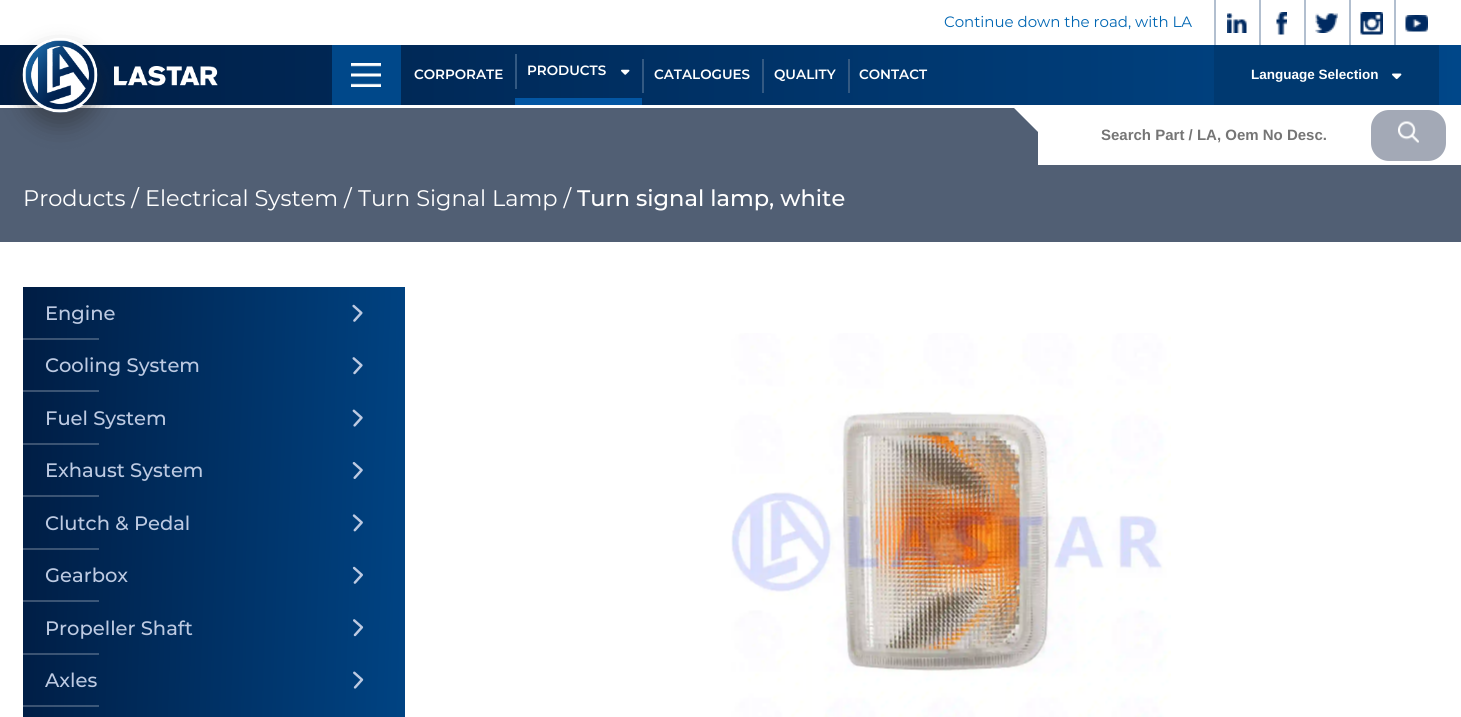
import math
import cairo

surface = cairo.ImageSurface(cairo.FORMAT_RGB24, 1461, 717)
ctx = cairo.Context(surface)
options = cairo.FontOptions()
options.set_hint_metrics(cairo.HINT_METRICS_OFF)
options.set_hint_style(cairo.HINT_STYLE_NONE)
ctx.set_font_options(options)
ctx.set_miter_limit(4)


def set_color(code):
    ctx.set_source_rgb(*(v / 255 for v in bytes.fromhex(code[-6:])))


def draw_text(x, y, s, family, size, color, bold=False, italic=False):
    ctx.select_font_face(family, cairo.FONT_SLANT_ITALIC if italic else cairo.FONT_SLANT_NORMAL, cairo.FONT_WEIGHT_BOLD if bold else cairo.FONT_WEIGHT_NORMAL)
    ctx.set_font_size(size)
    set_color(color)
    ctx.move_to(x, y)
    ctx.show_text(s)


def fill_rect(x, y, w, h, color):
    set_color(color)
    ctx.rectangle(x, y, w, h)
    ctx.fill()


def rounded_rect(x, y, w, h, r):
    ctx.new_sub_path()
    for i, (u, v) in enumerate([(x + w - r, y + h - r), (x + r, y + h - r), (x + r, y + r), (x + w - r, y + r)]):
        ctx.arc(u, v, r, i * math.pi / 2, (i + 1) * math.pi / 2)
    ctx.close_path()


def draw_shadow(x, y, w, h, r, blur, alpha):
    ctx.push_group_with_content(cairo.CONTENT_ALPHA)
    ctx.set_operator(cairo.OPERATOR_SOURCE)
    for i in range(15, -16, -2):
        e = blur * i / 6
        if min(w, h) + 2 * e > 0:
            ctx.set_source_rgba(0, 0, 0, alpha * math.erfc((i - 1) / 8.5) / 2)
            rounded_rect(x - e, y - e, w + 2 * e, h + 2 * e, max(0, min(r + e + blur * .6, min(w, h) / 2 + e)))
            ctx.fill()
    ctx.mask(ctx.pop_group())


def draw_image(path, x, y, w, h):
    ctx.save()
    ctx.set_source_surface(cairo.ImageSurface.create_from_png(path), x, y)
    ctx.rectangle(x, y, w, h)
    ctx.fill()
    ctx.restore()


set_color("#ffffff")
ctx.paint()
draw_text(944, 27, "Continue down the road, with LA", "Montserrat", 15, "#0066b3")
fill_rect(1214, 0, 2, 45, "#b2bfcf")
draw_image("assets/img1.png", 1227, 13, 20, 20)
fill_rect(1259, 0, 2, 45, "#b2bfcf")
draw_image("assets/img2.png", 1276, 12, 11, 23)
fill_rect(1304, 0, 2, 45, "#b2bfcf")
draw_image("assets/img3.png", 1315, 13, 23, 20)
fill_rect(1349, 0, 2, 45, "#b2bfcf")
draw_image("assets/img4.png", 1360, 12, 23, 23)
fill_rect(1394, 0, 2, 45, "#b2bfcf")
draw_image("assets/img5.png", 1405, 15, 23, 17)
gradient = cairo.LinearGradient(0, 75, 1461, 75)
gradient.add_color_stop_rgba(0, 0, 0.114, 0.267, 1)
gradient.add_color_stop_rgba(1, 0, 0.278, 0.537, 1)
ctx.set_source(gradient)
ctx.rectangle(0, 45, 1461, 60)
ctx.fill()
draw_image("assets/img7.png", 114, 66, 104, 20)
fill_rect(0, 108, 1461, 134, "#515f74")
ctx.save()
ctx.set_fill_rule(cairo.FILL_RULE_EVEN_ODD)
ctx.new_path()
ctx.move_to(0, 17)
ctx.line_to(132, 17)
ctx.line_to(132, 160)
ctx.line_to(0, 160)
ctx.close_path()
ctx.move_to(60.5, 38)
ctx.curve_to(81, 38, 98, 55, 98, 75.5)
ctx.curve_to(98, 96, 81, 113, 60.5, 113)
ctx.curve_to(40, 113, 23, 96, 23, 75.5)
ctx.curve_to(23, 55, 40, 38, 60.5, 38)
ctx.close_path()
ctx.clip()
set_color("#242424")
draw_shadow(23, 51, 75, 75, 37.5, 11, 0.45)
ctx.restore()
draw_image("assets/img6.png", 22, 40, 76, 73)
fill_rect(332, 45, 69, 60, "#00488a")
draw_image("assets/img8.png", 351, 63, 30, 24)
draw_text(414, 79, "CORPORATE", "Montserrat SemiBold", 13.5, "#ffffff")
fill_rect(515, 98, 127, 7, "#0356a3")
fill_rect(515, 54, 2, 35, "#335982")
draw_text(527, 75, "PRODUCTS", "Montserrat SemiBold", 13.5, "#ffffff")
draw_image("assets/img9.png", 621, 69, 9, 6)
fill_rect(642, 59, 2, 34, "#335982")
draw_text(654, 79, "CATALOGUES", "Montserrat SemiBold", 13.5, "#ffffff")
fill_rect(762, 59, 2, 34, "#335982")
draw_text(774, 79, "QUALITY", "Montserrat SemiBold", 13.5, "#ffffff")
fill_rect(848, 59, 2, 34, "#335982")
draw_text(859, 79, "CONTACT", "Montserrat SemiBold", 13.5, "#ffffff")
fill_rect(1214, 45, 225, 60, "#003970")
draw_text(1251, 79, "Language Selection", "Liberation Sans", 13.5, "#ffffff", bold=True)
draw_image("assets/img10.png", 1392, 73, 10, 7)
fill_rect(1038, 108, 423, 57, "#ffffff")
ctx.new_path()
ctx.move_to(1011, 105)
ctx.line_to(1071, 105)
ctx.line_to(1071, 165)
ctx.close_path()
ctx.fill()
draw_text(1101, 140, "Search Part / LA, Oem No Desc.", "Liberation Sans", 15, "#757575", bold=True)
set_color("#a3a9b6")
rounded_rect(1371, 110, 75, 51, 18)
ctx.fill()
draw_image("assets/img11.png", 1398, 121, 21, 22)
draw_text(23, 206, "Products /", "Montserrat", 22.5, "#ffffff")
draw_text(145, 206, "Electrical System /", "Montserrat", 22.5, "#ffffff")
draw_text(358, 206, "Turn Signal Lamp /", "Montserrat", 22.5, "#ffffff")
draw_text(577, 206, "Turn signal lamp, white", "Montserrat Medium", 22.5, "#ffffff")
gradient = cairo.LinearGradient(-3.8, 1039, 431, 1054)
gradient.add_color_stop_rgba(0, 0, 0.114, 0.267, 1)
gradient.add_color_stop_rgba(1, 0, 0.278, 0.537, 1)
ctx.set_source(gradient)
ctx.rectangle(23, 287, 382, 430)
ctx.fill()
gradient = cairo.LinearGradient(-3.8, 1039, 431, 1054)
gradient.add_color_stop_rgba(0, 0.231, 0.318, 0.435, 1)
gradient.add_color_stop_rgba(1, 0.231, 0.443, 0.643, 1)
ctx.set_source(gradient)
ctx.rectangle(23, 705, 76, 2)
ctx.fill()
ctx.rectangle(23, 653, 76, 2)
ctx.fill()
ctx.rectangle(23, 600, 76, 2)
ctx.fill()
ctx.rectangle(23, 548, 76, 2)
ctx.fill()
ctx.rectangle(23, 495, 76, 2)
ctx.fill()
ctx.rectangle(23, 443, 76, 2)
ctx.fill()
ctx.rectangle(23, 390, 76, 2)
ctx.fill()
ctx.rectangle(23, 338, 76, 2)
ctx.fill()
draw_text(45, 320, "Engine", "Montserrat Medium", 19.5, "#bdcae2")
draw_image("assets/img12.png", 352, 304, 11, 18)
draw_text(45, 372, "Cooling System", "Montserrat Medium", 19.5, "#bdcae2")
draw_image("assets/img13.png", 352, 357, 11, 18)
draw_text(45, 425, "Fuel System", "Montserrat Medium", 19.5, "#bdcae2")
draw_image("assets/img14.png", 352, 409, 11, 18)
draw_text(45, 477, "Exhaust System", "Montserrat Medium", 19.5, "#bdcae2")
draw_image("assets/img15.png", 352, 462, 11, 17)
draw_text(45, 530, "Clutch & Pedal", "Montserrat Medium", 19.5, "#bdcae2")
draw_image("assets/img16.png", 352, 514, 11, 18)
draw_text(45, 582, "Gearbox", "Montserrat Medium", 19.5, "#bdcae2")
draw_image("assets/img17.png", 352, 566, 11, 18)
draw_text(45, 635, "Propeller Shaft", "Montserrat Medium", 19.5, "#bdcae2")
draw_image("assets/img18.png", 353, 619, 11, 18)
draw_text(45, 687, "Axles", "Montserrat Medium", 19.5, "#bdcae2")
draw_image("assets/img19.png", 353, 671, 11, 18)
draw_image("assets/img20.png", 731, 333, 440, 384)
surface.write_to_png("output.png")
